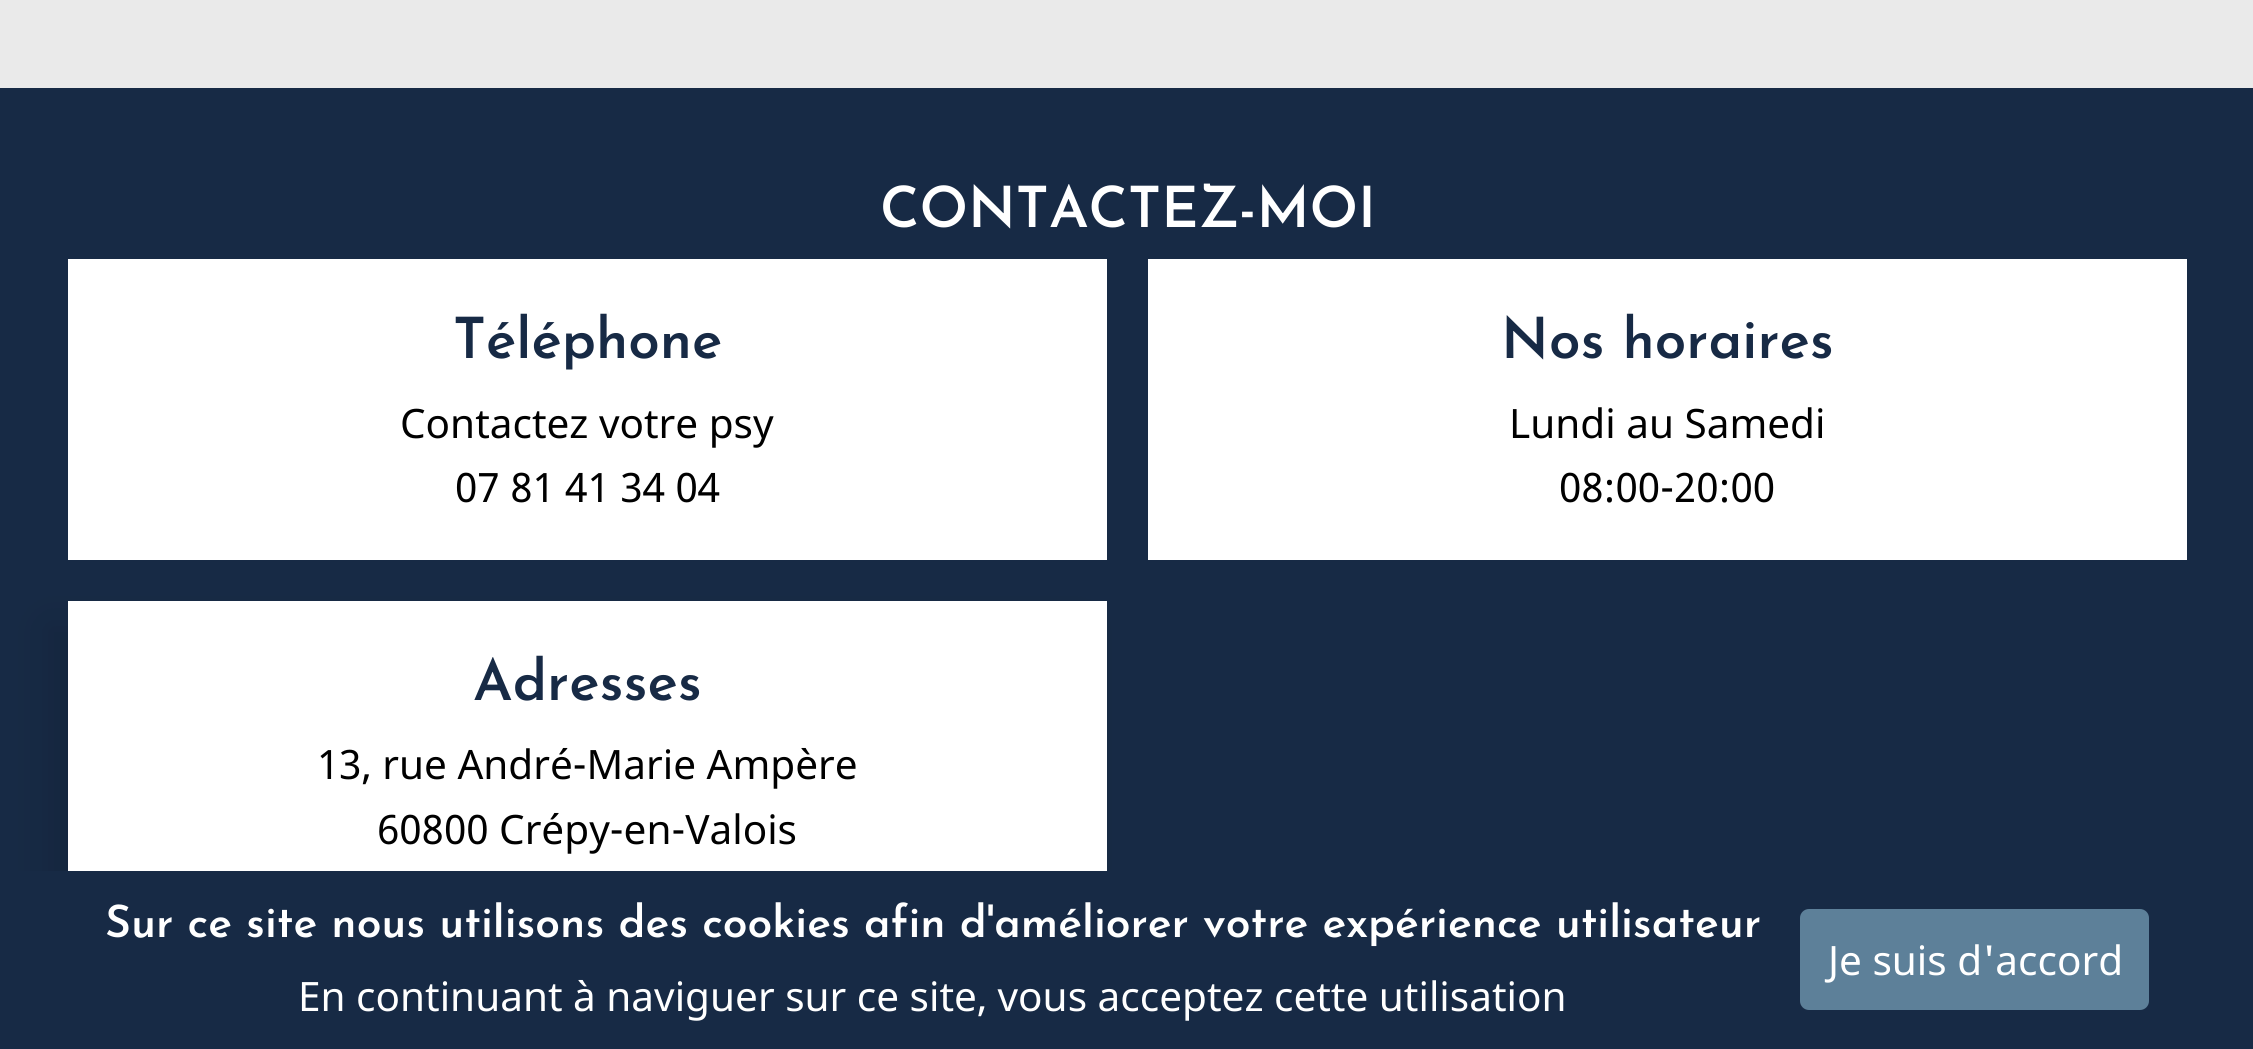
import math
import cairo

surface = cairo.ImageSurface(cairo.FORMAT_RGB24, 2253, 1049)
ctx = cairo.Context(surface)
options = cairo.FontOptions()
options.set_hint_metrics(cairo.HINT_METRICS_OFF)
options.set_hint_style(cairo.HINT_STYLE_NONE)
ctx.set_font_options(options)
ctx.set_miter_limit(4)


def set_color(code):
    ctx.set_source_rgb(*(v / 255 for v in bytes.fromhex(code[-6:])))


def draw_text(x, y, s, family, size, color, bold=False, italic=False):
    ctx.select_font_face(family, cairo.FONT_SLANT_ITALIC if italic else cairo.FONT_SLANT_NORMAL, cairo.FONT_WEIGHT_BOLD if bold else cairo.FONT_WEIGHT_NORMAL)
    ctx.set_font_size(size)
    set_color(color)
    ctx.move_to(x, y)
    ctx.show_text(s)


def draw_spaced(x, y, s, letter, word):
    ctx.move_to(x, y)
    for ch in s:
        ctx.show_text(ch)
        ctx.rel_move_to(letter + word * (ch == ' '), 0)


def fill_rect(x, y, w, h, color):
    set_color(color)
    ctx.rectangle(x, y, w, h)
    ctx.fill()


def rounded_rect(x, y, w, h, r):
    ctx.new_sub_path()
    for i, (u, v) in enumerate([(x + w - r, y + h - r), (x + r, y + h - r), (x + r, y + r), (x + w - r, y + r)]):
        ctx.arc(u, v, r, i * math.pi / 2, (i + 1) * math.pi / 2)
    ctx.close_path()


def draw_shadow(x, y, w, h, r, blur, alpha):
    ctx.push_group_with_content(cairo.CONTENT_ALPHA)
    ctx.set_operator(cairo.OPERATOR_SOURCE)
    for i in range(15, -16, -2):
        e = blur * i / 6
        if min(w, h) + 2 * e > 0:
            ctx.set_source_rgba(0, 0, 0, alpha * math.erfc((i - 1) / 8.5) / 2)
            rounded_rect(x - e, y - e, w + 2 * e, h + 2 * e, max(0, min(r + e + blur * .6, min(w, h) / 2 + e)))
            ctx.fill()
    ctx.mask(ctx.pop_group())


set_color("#eaeaea")
ctx.paint()
fill_rect(0, 88, 2253, 783, "#172a45")
draw_text(880, 227, "CONTACTEZ-MOI", "Josefin Sans Thin", 56.75, "#ffffff")
fill_rect(68, 259, 1039, 301, "#ffffff")
draw_text(453, 358, "Téléphone", "Josefin Sans Thin", 56.75, "#172a45")
draw_text(400, 438, "Contactez votre psy", "Noto Sans", 40.5, "#000000")
draw_text(455, 502, "07 81 41 34 04", "Noto Sans", 40.5, "#000000")
fill_rect(1148, 259, 1039, 301, "#ffffff")
draw_text(1501, 358, "Nos horaires", "Josefin Sans Thin", 56.75, "#172a45")
draw_text(1509, 438, "Lundi au Samedi", "Noto Sans", 40.5, "#000000")
draw_text(1559, 502, "08:00-20:00", "Noto Sans", 40.5, "#000000")
set_color("#000000")
draw_shadow(45, 623, 1040, 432, 0, 18, 0.1)
fill_rect(68, 601, 1039, 270, "#ffffff")
draw_text(473, 700, "Adresses", "Josefin Sans Thin", 56.75, "#172a45")
draw_text(317, 779, "13, rue André-Marie Ampère", "Noto Sans", 40.5, "#000000")
draw_text(377, 844, "60800 Crépy-en-Valois", "Noto Sans", 40.5, "#000000")
fill_rect(0, 871, 2253, 178, "#172a45")
ctx.select_font_face("Josefin Sans Thin")
ctx.set_font_size(44.55)
set_color("#ffffff")
draw_spaced(105, 937, "Sur ce site nous utilisons des cookies afin d'améliorer votre expérience utilisateur", 0, -0.1)
draw_text(298, 1011, "En continuant à naviguer sur ce site, vous acceptez cette utilisation", "Noto Sans", 40.5, "#ffffff")
set_color("#5d8099")
rounded_rect(1800, 909, 349, 101, 9)
ctx.fill()
draw_text(1828, 975, "Je suis d'accord", "Noto Sans", 40.5, "#ffffff")
surface.write_to_png("output.png")
